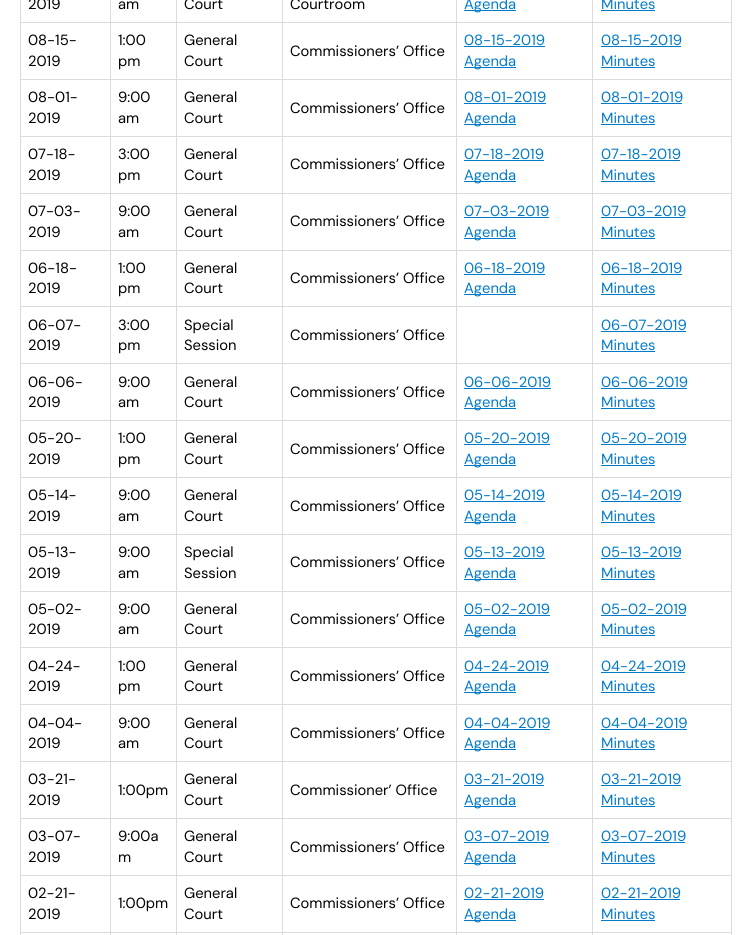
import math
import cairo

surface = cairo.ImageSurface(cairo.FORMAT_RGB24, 752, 935)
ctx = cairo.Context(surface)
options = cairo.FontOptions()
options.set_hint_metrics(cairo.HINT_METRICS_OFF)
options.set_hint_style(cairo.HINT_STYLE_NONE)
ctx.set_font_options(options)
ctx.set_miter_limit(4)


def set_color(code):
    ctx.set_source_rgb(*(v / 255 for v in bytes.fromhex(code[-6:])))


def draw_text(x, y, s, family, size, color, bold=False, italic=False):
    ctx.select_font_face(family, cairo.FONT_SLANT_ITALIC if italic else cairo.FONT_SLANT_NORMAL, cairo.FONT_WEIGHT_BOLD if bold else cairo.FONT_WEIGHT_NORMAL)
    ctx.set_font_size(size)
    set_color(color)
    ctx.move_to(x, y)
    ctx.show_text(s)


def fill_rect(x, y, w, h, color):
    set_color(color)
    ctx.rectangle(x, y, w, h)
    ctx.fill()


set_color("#ffffff")
ctx.paint()
fill_rect(731, 0, 1, 935, "#dbdbdb")
fill_rect(20, 0, 1, 935, "#dbdbdb")
draw_text(28, 9, "2019", "DM Sans", 14.75, "#000000")
fill_rect(592, 22, 139, 1, "#dbdbdb")
fill_rect(592, 79, 139, 1, "#dbdbdb")
fill_rect(592, 136, 139, 1, "#dbdbdb")
fill_rect(592, 193, 139, 1, "#dbdbdb")
fill_rect(592, 250, 139, 1, "#dbdbdb")
fill_rect(592, 306, 139, 1, "#dbdbdb")
fill_rect(592, 363, 139, 1, "#dbdbdb")
fill_rect(592, 420, 139, 1, "#dbdbdb")
fill_rect(592, 477, 139, 1, "#dbdbdb")
fill_rect(592, 534, 139, 1, "#dbdbdb")
fill_rect(592, 591, 139, 1, "#dbdbdb")
fill_rect(592, 647, 139, 1, "#dbdbdb")
fill_rect(592, 704, 139, 1, "#dbdbdb")
fill_rect(592, 761, 139, 1, "#dbdbdb")
fill_rect(592, 818, 139, 1, "#dbdbdb")
fill_rect(592, 875, 139, 1, "#dbdbdb")
fill_rect(592, 932, 139, 1, "#dbdbdb")
fill_rect(592, 932, 1, 3, "#dbdbdb")
fill_rect(456, 932, 137, 1, "#dbdbdb")
fill_rect(592, 875, 1, 58, "#dbdbdb")
fill_rect(456, 875, 137, 1, "#dbdbdb")
fill_rect(592, 818, 1, 58, "#dbdbdb")
fill_rect(456, 818, 137, 1, "#dbdbdb")
fill_rect(592, 761, 1, 58, "#dbdbdb")
fill_rect(456, 761, 137, 1, "#dbdbdb")
fill_rect(592, 704, 1, 58, "#dbdbdb")
fill_rect(456, 704, 137, 1, "#dbdbdb")
fill_rect(592, 647, 1, 58, "#dbdbdb")
fill_rect(456, 647, 137, 1, "#dbdbdb")
fill_rect(592, 591, 1, 57, "#dbdbdb")
fill_rect(456, 591, 137, 1, "#dbdbdb")
fill_rect(592, 534, 1, 58, "#dbdbdb")
fill_rect(456, 534, 137, 1, "#dbdbdb")
fill_rect(592, 477, 1, 58, "#dbdbdb")
fill_rect(456, 477, 137, 1, "#dbdbdb")
fill_rect(592, 420, 1, 58, "#dbdbdb")
fill_rect(456, 420, 137, 1, "#dbdbdb")
fill_rect(592, 363, 1, 58, "#dbdbdb")
fill_rect(456, 363, 137, 1, "#dbdbdb")
fill_rect(592, 306, 1, 58, "#dbdbdb")
fill_rect(456, 306, 137, 1, "#dbdbdb")
fill_rect(592, 250, 1, 57, "#dbdbdb")
fill_rect(456, 250, 137, 1, "#dbdbdb")
fill_rect(592, 193, 1, 58, "#dbdbdb")
fill_rect(456, 193, 137, 1, "#dbdbdb")
fill_rect(592, 136, 1, 58, "#dbdbdb")
fill_rect(456, 136, 137, 1, "#dbdbdb")
fill_rect(592, 79, 1, 58, "#dbdbdb")
fill_rect(456, 79, 137, 1, "#dbdbdb")
fill_rect(592, 22, 1, 58, "#dbdbdb")
fill_rect(456, 22, 137, 1, "#dbdbdb")
fill_rect(456, 932, 1, 3, "#dbdbdb")
fill_rect(282, 932, 175, 1, "#dbdbdb")
fill_rect(456, 875, 1, 58, "#dbdbdb")
fill_rect(282, 875, 175, 1, "#dbdbdb")
fill_rect(456, 818, 1, 58, "#dbdbdb")
fill_rect(282, 818, 175, 1, "#dbdbdb")
fill_rect(456, 761, 1, 58, "#dbdbdb")
fill_rect(282, 761, 175, 1, "#dbdbdb")
fill_rect(456, 704, 1, 58, "#dbdbdb")
fill_rect(282, 704, 175, 1, "#dbdbdb")
fill_rect(456, 647, 1, 58, "#dbdbdb")
fill_rect(282, 647, 175, 1, "#dbdbdb")
fill_rect(456, 591, 1, 57, "#dbdbdb")
fill_rect(282, 591, 175, 1, "#dbdbdb")
fill_rect(456, 534, 1, 58, "#dbdbdb")
fill_rect(282, 534, 175, 1, "#dbdbdb")
fill_rect(456, 477, 1, 58, "#dbdbdb")
fill_rect(282, 477, 175, 1, "#dbdbdb")
fill_rect(456, 420, 1, 58, "#dbdbdb")
fill_rect(282, 420, 175, 1, "#dbdbdb")
fill_rect(456, 363, 1, 58, "#dbdbdb")
fill_rect(282, 363, 175, 1, "#dbdbdb")
fill_rect(456, 306, 1, 58, "#dbdbdb")
fill_rect(282, 306, 175, 1, "#dbdbdb")
fill_rect(456, 250, 1, 57, "#dbdbdb")
fill_rect(282, 250, 175, 1, "#dbdbdb")
fill_rect(456, 193, 1, 58, "#dbdbdb")
fill_rect(282, 193, 175, 1, "#dbdbdb")
fill_rect(456, 136, 1, 58, "#dbdbdb")
fill_rect(282, 136, 175, 1, "#dbdbdb")
fill_rect(456, 79, 1, 58, "#dbdbdb")
fill_rect(282, 79, 175, 1, "#dbdbdb")
fill_rect(456, 22, 1, 58, "#dbdbdb")
fill_rect(282, 22, 175, 1, "#dbdbdb")
fill_rect(282, 932, 1, 3, "#dbdbdb")
fill_rect(176, 932, 107, 1, "#dbdbdb")
fill_rect(282, 875, 1, 58, "#dbdbdb")
fill_rect(176, 875, 107, 1, "#dbdbdb")
fill_rect(282, 818, 1, 58, "#dbdbdb")
fill_rect(176, 818, 107, 1, "#dbdbdb")
fill_rect(282, 761, 1, 58, "#dbdbdb")
fill_rect(176, 761, 107, 1, "#dbdbdb")
fill_rect(282, 704, 1, 58, "#dbdbdb")
fill_rect(176, 704, 107, 1, "#dbdbdb")
fill_rect(282, 647, 1, 58, "#dbdbdb")
fill_rect(176, 647, 107, 1, "#dbdbdb")
fill_rect(282, 591, 1, 57, "#dbdbdb")
fill_rect(176, 591, 107, 1, "#dbdbdb")
fill_rect(282, 534, 1, 58, "#dbdbdb")
fill_rect(176, 534, 107, 1, "#dbdbdb")
fill_rect(282, 477, 1, 58, "#dbdbdb")
fill_rect(176, 477, 107, 1, "#dbdbdb")
fill_rect(282, 420, 1, 58, "#dbdbdb")
fill_rect(176, 420, 107, 1, "#dbdbdb")
fill_rect(282, 363, 1, 58, "#dbdbdb")
fill_rect(176, 363, 107, 1, "#dbdbdb")
fill_rect(282, 306, 1, 58, "#dbdbdb")
fill_rect(176, 306, 107, 1, "#dbdbdb")
fill_rect(282, 250, 1, 57, "#dbdbdb")
fill_rect(176, 250, 107, 1, "#dbdbdb")
fill_rect(282, 193, 1, 58, "#dbdbdb")
fill_rect(176, 193, 107, 1, "#dbdbdb")
fill_rect(282, 136, 1, 58, "#dbdbdb")
fill_rect(176, 136, 107, 1, "#dbdbdb")
fill_rect(282, 79, 1, 58, "#dbdbdb")
fill_rect(176, 79, 107, 1, "#dbdbdb")
fill_rect(282, 22, 1, 58, "#dbdbdb")
fill_rect(176, 22, 107, 1, "#dbdbdb")
fill_rect(176, 932, 1, 3, "#dbdbdb")
fill_rect(110, 932, 67, 1, "#dbdbdb")
fill_rect(176, 875, 1, 58, "#dbdbdb")
fill_rect(110, 875, 67, 1, "#dbdbdb")
fill_rect(176, 818, 1, 58, "#dbdbdb")
fill_rect(110, 818, 67, 1, "#dbdbdb")
fill_rect(176, 761, 1, 58, "#dbdbdb")
fill_rect(110, 761, 67, 1, "#dbdbdb")
fill_rect(176, 704, 1, 58, "#dbdbdb")
fill_rect(110, 704, 67, 1, "#dbdbdb")
fill_rect(176, 647, 1, 58, "#dbdbdb")
fill_rect(110, 647, 67, 1, "#dbdbdb")
fill_rect(176, 591, 1, 57, "#dbdbdb")
fill_rect(110, 591, 67, 1, "#dbdbdb")
fill_rect(176, 534, 1, 58, "#dbdbdb")
fill_rect(110, 534, 67, 1, "#dbdbdb")
fill_rect(176, 477, 1, 58, "#dbdbdb")
fill_rect(110, 477, 67, 1, "#dbdbdb")
fill_rect(176, 420, 1, 58, "#dbdbdb")
fill_rect(110, 420, 67, 1, "#dbdbdb")
fill_rect(176, 363, 1, 58, "#dbdbdb")
fill_rect(110, 363, 67, 1, "#dbdbdb")
fill_rect(176, 306, 1, 58, "#dbdbdb")
fill_rect(110, 306, 67, 1, "#dbdbdb")
fill_rect(176, 250, 1, 57, "#dbdbdb")
fill_rect(110, 250, 67, 1, "#dbdbdb")
fill_rect(176, 193, 1, 58, "#dbdbdb")
fill_rect(110, 193, 67, 1, "#dbdbdb")
fill_rect(176, 136, 1, 58, "#dbdbdb")
fill_rect(110, 136, 67, 1, "#dbdbdb")
fill_rect(176, 79, 1, 58, "#dbdbdb")
fill_rect(110, 79, 67, 1, "#dbdbdb")
fill_rect(176, 22, 1, 58, "#dbdbdb")
fill_rect(110, 22, 67, 1, "#dbdbdb")
fill_rect(110, 932, 1, 3, "#dbdbdb")
fill_rect(21, 932, 90, 1, "#dbdbdb")
fill_rect(110, 875, 1, 58, "#dbdbdb")
fill_rect(21, 875, 90, 1, "#dbdbdb")
fill_rect(110, 818, 1, 58, "#dbdbdb")
fill_rect(21, 818, 90, 1, "#dbdbdb")
fill_rect(110, 761, 1, 58, "#dbdbdb")
fill_rect(21, 761, 90, 1, "#dbdbdb")
fill_rect(110, 704, 1, 58, "#dbdbdb")
fill_rect(21, 704, 90, 1, "#dbdbdb")
fill_rect(110, 647, 1, 58, "#dbdbdb")
fill_rect(21, 647, 90, 1, "#dbdbdb")
fill_rect(110, 591, 1, 57, "#dbdbdb")
fill_rect(21, 591, 90, 1, "#dbdbdb")
fill_rect(110, 534, 1, 58, "#dbdbdb")
fill_rect(21, 534, 90, 1, "#dbdbdb")
fill_rect(110, 477, 1, 58, "#dbdbdb")
fill_rect(21, 477, 90, 1, "#dbdbdb")
fill_rect(110, 420, 1, 58, "#dbdbdb")
fill_rect(21, 420, 90, 1, "#dbdbdb")
fill_rect(110, 363, 1, 58, "#dbdbdb")
fill_rect(21, 363, 90, 1, "#dbdbdb")
fill_rect(110, 306, 1, 58, "#dbdbdb")
fill_rect(21, 306, 90, 1, "#dbdbdb")
fill_rect(110, 250, 1, 57, "#dbdbdb")
fill_rect(21, 250, 90, 1, "#dbdbdb")
fill_rect(110, 193, 1, 58, "#dbdbdb")
fill_rect(21, 193, 90, 1, "#dbdbdb")
fill_rect(110, 136, 1, 58, "#dbdbdb")
fill_rect(21, 136, 90, 1, "#dbdbdb")
fill_rect(110, 79, 1, 58, "#dbdbdb")
fill_rect(21, 79, 90, 1, "#dbdbdb")
fill_rect(110, 22, 1, 58, "#dbdbdb")
fill_rect(21, 22, 90, 1, "#dbdbdb")
fill_rect(110, 0, 1, 23, "#dbdbdb")
draw_text(118, 9, "am", "DM Sans", 14.75, "#000000")
fill_rect(176, 0, 1, 23, "#dbdbdb")
draw_text(184, 9, "Court", "DM Sans", 14.75, "#000000")
fill_rect(282, 0, 1, 23, "#dbdbdb")
draw_text(290, 9, "Courtroom", "DM Sans", 14.75, "#000000")
fill_rect(456, 0, 1, 23, "#dbdbdb")
fill_rect(464, 10, 52, 1, "#017aca")
draw_text(464, 9, "Agenda", "DM Sans", 14.75, "#017aca")
fill_rect(592, 0, 1, 23, "#dbdbdb")
draw_text(601, 9, "Minutes", "DM Sans", 14.75, "#017aca")
fill_rect(601, 10, 54, 1, "#017aca")
draw_text(28, 45, "08-15-", "DM Sans", 14.75, "#000000")
draw_text(28, 66, "2019", "DM Sans", 14.75, "#000000")
draw_text(118, 45, "1:00", "DM Sans", 14.75, "#000000")
draw_text(118, 66, "pm", "DM Sans", 14.75, "#000000")
draw_text(184, 45, "General", "DM Sans", 14.75, "#000000")
draw_text(184, 66, "Court", "DM Sans", 14.75, "#000000")
draw_text(290, 56, "Commissioners’ Office", "DM Sans", 14.75, "#000000")
draw_text(464, 45, "08-15-2019", "DM Sans", 14.75, "#017aca")
fill_rect(464, 46, 81, 1, "#017aca")
fill_rect(464, 67, 52, 1, "#017aca")
draw_text(464, 66, "Agenda", "DM Sans", 14.75, "#017aca")
draw_text(601, 45, "08-15-2019", "DM Sans", 14.75, "#017aca")
fill_rect(601, 46, 80, 1, "#017aca")
draw_text(601, 66, "Minutes", "DM Sans", 14.75, "#017aca")
fill_rect(601, 67, 54, 1, "#017aca")
draw_text(28, 102, "08-01-", "DM Sans", 14.75, "#000000")
draw_text(28, 123, "2019", "DM Sans", 14.75, "#000000")
draw_text(118, 102, "9:00", "DM Sans", 14.75, "#000000")
draw_text(118, 123, "am", "DM Sans", 14.75, "#000000")
draw_text(184, 102, "General", "DM Sans", 14.75, "#000000")
draw_text(184, 123, "Court", "DM Sans", 14.75, "#000000")
draw_text(290, 113, "Commissioners’ Office", "DM Sans", 14.75, "#000000")
draw_text(464, 102, "08-01-2019", "DM Sans", 14.75, "#017aca")
fill_rect(464, 103, 82, 1, "#017aca")
fill_rect(464, 124, 52, 1, "#017aca")
draw_text(464, 123, "Agenda", "DM Sans", 14.75, "#017aca")
draw_text(601, 102, "08-01-2019", "DM Sans", 14.75, "#017aca")
fill_rect(601, 103, 81, 1, "#017aca")
draw_text(601, 123, "Minutes", "DM Sans", 14.75, "#017aca")
fill_rect(601, 124, 54, 1, "#017aca")
draw_text(28, 159, "07-18-", "DM Sans", 14.75, "#000000")
draw_text(28, 180, "2019", "DM Sans", 14.75, "#000000")
draw_text(118, 159, "3:00", "DM Sans", 14.75, "#000000")
draw_text(118, 180, "pm", "DM Sans", 14.75, "#000000")
draw_text(184, 159, "General", "DM Sans", 14.75, "#000000")
draw_text(184, 180, "Court", "DM Sans", 14.75, "#000000")
draw_text(290, 169, "Commissioners’ Office", "DM Sans", 14.75, "#000000")
draw_text(464, 159, "07-18-2019", "DM Sans", 14.75, "#017aca")
fill_rect(464, 160, 80, 1, "#017aca")
fill_rect(464, 181, 52, 1, "#017aca")
draw_text(464, 180, "Agenda", "DM Sans", 14.75, "#017aca")
draw_text(601, 159, "07-18-2019", "DM Sans", 14.75, "#017aca")
fill_rect(601, 160, 79, 1, "#017aca")
draw_text(601, 180, "Minutes", "DM Sans", 14.75, "#017aca")
fill_rect(601, 181, 54, 1, "#017aca")
draw_text(28, 216, "07-03-", "DM Sans", 14.75, "#000000")
draw_text(28, 237, "2019", "DM Sans", 14.75, "#000000")
draw_text(118, 216, "9:00", "DM Sans", 14.75, "#000000")
draw_text(118, 237, "am", "DM Sans", 14.75, "#000000")
draw_text(184, 216, "General", "DM Sans", 14.75, "#000000")
draw_text(184, 237, "Court", "DM Sans", 14.75, "#000000")
draw_text(290, 226, "Commissioners’ Office", "DM Sans", 14.75, "#000000")
draw_text(464, 216, "07-03-2019", "DM Sans", 14.75, "#017aca")
fill_rect(464, 217, 85, 1, "#017aca")
fill_rect(464, 238, 52, 1, "#017aca")
draw_text(464, 237, "Agenda", "DM Sans", 14.75, "#017aca")
draw_text(601, 216, "07-03-2019", "DM Sans", 14.75, "#017aca")
fill_rect(601, 217, 84, 1, "#017aca")
draw_text(601, 237, "Minutes", "DM Sans", 14.75, "#017aca")
fill_rect(601, 238, 54, 1, "#017aca")
draw_text(28, 273, "06-18-", "DM Sans", 14.75, "#000000")
draw_text(28, 293, "2019", "DM Sans", 14.75, "#000000")
draw_text(118, 273, "1:00", "DM Sans", 14.75, "#000000")
draw_text(118, 293, "pm", "DM Sans", 14.75, "#000000")
draw_text(184, 273, "General", "DM Sans", 14.75, "#000000")
draw_text(184, 293, "Court", "DM Sans", 14.75, "#000000")
draw_text(290, 283, "Commissioners’ Office", "DM Sans", 14.75, "#000000")
draw_text(464, 273, "06-18-2019", "DM Sans", 14.75, "#017aca")
fill_rect(464, 274, 81, 1, "#017aca")
fill_rect(464, 294, 52, 1, "#017aca")
draw_text(464, 293, "Agenda", "DM Sans", 14.75, "#017aca")
draw_text(601, 273, "06-18-2019", "DM Sans", 14.75, "#017aca")
fill_rect(601, 274, 81, 1, "#017aca")
draw_text(601, 293, "Minutes", "DM Sans", 14.75, "#017aca")
fill_rect(601, 294, 54, 1, "#017aca")
draw_text(28, 330, "06-07-", "DM Sans", 14.75, "#000000")
draw_text(28, 350, "2019", "DM Sans", 14.75, "#000000")
draw_text(118, 330, "3:00", "DM Sans", 14.75, "#000000")
draw_text(118, 350, "pm", "DM Sans", 14.75, "#000000")
draw_text(184, 330, "Special", "DM Sans", 14.75, "#000000")
draw_text(184, 350, "Session", "DM Sans", 14.75, "#000000")
draw_text(290, 340, "Commissioners’ Office", "DM Sans", 14.75, "#000000")
draw_text(601, 330, "06-07-2019", "DM Sans", 14.75, "#017aca")
fill_rect(601, 331, 85, 1, "#017aca")
draw_text(601, 350, "Minutes", "DM Sans", 14.75, "#017aca")
fill_rect(601, 351, 54, 1, "#017aca")
draw_text(28, 387, "06-06-", "DM Sans", 14.75, "#000000")
draw_text(28, 407, "2019", "DM Sans", 14.75, "#000000")
draw_text(118, 387, "9:00", "DM Sans", 14.75, "#000000")
draw_text(118, 407, "am", "DM Sans", 14.75, "#000000")
draw_text(184, 387, "General", "DM Sans", 14.75, "#000000")
draw_text(184, 407, "Court", "DM Sans", 14.75, "#000000")
draw_text(290, 397, "Commissioners’ Office", "DM Sans", 14.75, "#000000")
draw_text(464, 387, "06-06-2019", "DM Sans", 14.75, "#017aca")
fill_rect(464, 388, 87, 1, "#017aca")
fill_rect(464, 408, 52, 1, "#017aca")
draw_text(464, 407, "Agenda", "DM Sans", 14.75, "#017aca")
draw_text(601, 387, "06-06-2019", "DM Sans", 14.75, "#017aca")
fill_rect(601, 388, 86, 1, "#017aca")
draw_text(601, 407, "Minutes", "DM Sans", 14.75, "#017aca")
fill_rect(601, 408, 54, 1, "#017aca")
draw_text(28, 443, "05-20-", "DM Sans", 14.75, "#000000")
draw_text(28, 464, "2019", "DM Sans", 14.75, "#000000")
draw_text(118, 443, "1:00", "DM Sans", 14.75, "#000000")
draw_text(118, 464, "pm", "DM Sans", 14.75, "#000000")
draw_text(184, 443, "General", "DM Sans", 14.75, "#000000")
draw_text(184, 464, "Court", "DM Sans", 14.75, "#000000")
draw_text(290, 454, "Commissioners’ Office", "DM Sans", 14.75, "#000000")
draw_text(464, 443, "05-20-2019", "DM Sans", 14.75, "#017aca")
fill_rect(464, 444, 86, 1, "#017aca")
fill_rect(464, 465, 52, 1, "#017aca")
draw_text(464, 464, "Agenda", "DM Sans", 14.75, "#017aca")
draw_text(601, 443, "05-20-2019", "DM Sans", 14.75, "#017aca")
fill_rect(601, 444, 85, 1, "#017aca")
draw_text(601, 464, "Minutes", "DM Sans", 14.75, "#017aca")
fill_rect(601, 465, 54, 1, "#017aca")
draw_text(28, 500, "05-14-", "DM Sans", 14.75, "#000000")
draw_text(28, 521, "2019", "DM Sans", 14.75, "#000000")
draw_text(118, 500, "9:00", "DM Sans", 14.75, "#000000")
draw_text(118, 521, "am", "DM Sans", 14.75, "#000000")
draw_text(184, 500, "General", "DM Sans", 14.75, "#000000")
draw_text(184, 521, "Court", "DM Sans", 14.75, "#000000")
draw_text(290, 511, "Commissioners’ Office", "DM Sans", 14.75, "#000000")
draw_text(464, 500, "05-14-2019", "DM Sans", 14.75, "#017aca")
fill_rect(464, 501, 81, 1, "#017aca")
fill_rect(464, 522, 52, 1, "#017aca")
draw_text(464, 521, "Agenda", "DM Sans", 14.75, "#017aca")
draw_text(601, 500, "05-14-2019", "DM Sans", 14.75, "#017aca")
fill_rect(601, 501, 80, 1, "#017aca")
draw_text(601, 521, "Minutes", "DM Sans", 14.75, "#017aca")
fill_rect(601, 522, 54, 1, "#017aca")
draw_text(28, 557, "05-13-", "DM Sans", 14.75, "#000000")
draw_text(28, 578, "2019", "DM Sans", 14.75, "#000000")
draw_text(118, 557, "9:00", "DM Sans", 14.75, "#000000")
draw_text(118, 578, "am", "DM Sans", 14.75, "#000000")
draw_text(184, 557, "Special", "DM Sans", 14.75, "#000000")
draw_text(184, 578, "Session", "DM Sans", 14.75, "#000000")
draw_text(290, 567, "Commissioners’ Office", "DM Sans", 14.75, "#000000")
draw_text(464, 557, "05-13-2019", "DM Sans", 14.75, "#017aca")
fill_rect(464, 558, 81, 1, "#017aca")
fill_rect(464, 579, 52, 1, "#017aca")
draw_text(464, 578, "Agenda", "DM Sans", 14.75, "#017aca")
draw_text(601, 557, "05-13-2019", "DM Sans", 14.75, "#017aca")
fill_rect(601, 558, 80, 1, "#017aca")
draw_text(601, 578, "Minutes", "DM Sans", 14.75, "#017aca")
fill_rect(601, 579, 54, 1, "#017aca")
draw_text(28, 614, "05-02-", "DM Sans", 14.75, "#000000")
draw_text(28, 634, "2019", "DM Sans", 14.75, "#000000")
draw_text(118, 614, "9:00", "DM Sans", 14.75, "#000000")
draw_text(118, 634, "am", "DM Sans", 14.75, "#000000")
draw_text(184, 614, "General", "DM Sans", 14.75, "#000000")
draw_text(184, 634, "Court", "DM Sans", 14.75, "#000000")
draw_text(290, 624, "Commissioners’ Office", "DM Sans", 14.75, "#000000")
draw_text(464, 614, "05-02-2019", "DM Sans", 14.75, "#017aca")
fill_rect(464, 615, 86, 1, "#017aca")
fill_rect(464, 635, 52, 1, "#017aca")
draw_text(464, 634, "Agenda", "DM Sans", 14.75, "#017aca")
draw_text(601, 614, "05-02-2019", "DM Sans", 14.75, "#017aca")
fill_rect(601, 615, 85, 1, "#017aca")
draw_text(601, 634, "Minutes", "DM Sans", 14.75, "#017aca")
fill_rect(601, 635, 54, 1, "#017aca")
draw_text(28, 671, "04-24-", "DM Sans", 14.75, "#000000")
draw_text(28, 691, "2019", "DM Sans", 14.75, "#000000")
draw_text(118, 671, "1:00", "DM Sans", 14.75, "#000000")
draw_text(118, 691, "pm", "DM Sans", 14.75, "#000000")
draw_text(184, 671, "General", "DM Sans", 14.75, "#000000")
draw_text(184, 691, "Court", "DM Sans", 14.75, "#000000")
draw_text(290, 681, "Commissioners’ Office", "DM Sans", 14.75, "#000000")
draw_text(464, 671, "04-24-2019", "DM Sans", 14.75, "#017aca")
fill_rect(464, 672, 85, 1, "#017aca")
fill_rect(464, 692, 52, 1, "#017aca")
draw_text(464, 691, "Agenda", "DM Sans", 14.75, "#017aca")
draw_text(601, 671, "04-24-2019", "DM Sans", 14.75, "#017aca")
fill_rect(601, 672, 84, 1, "#017aca")
draw_text(601, 691, "Minutes", "DM Sans", 14.75, "#017aca")
fill_rect(601, 692, 54, 1, "#017aca")
draw_text(28, 728, "04-04-", "DM Sans", 14.75, "#000000")
draw_text(28, 748, "2019", "DM Sans", 14.75, "#000000")
draw_text(118, 728, "9:00", "DM Sans", 14.75, "#000000")
draw_text(118, 748, "am", "DM Sans", 14.75, "#000000")
draw_text(184, 728, "General", "DM Sans", 14.75, "#000000")
draw_text(184, 748, "Court", "DM Sans", 14.75, "#000000")
draw_text(290, 738, "Commissioners’ Office", "DM Sans", 14.75, "#000000")
draw_text(464, 728, "04-04-2019", "DM Sans", 14.75, "#017aca")
fill_rect(464, 729, 86, 1, "#017aca")
fill_rect(464, 749, 52, 1, "#017aca")
draw_text(464, 748, "Agenda", "DM Sans", 14.75, "#017aca")
draw_text(601, 728, "04-04-2019", "DM Sans", 14.75, "#017aca")
fill_rect(601, 729, 86, 1, "#017aca")
draw_text(601, 748, "Minutes", "DM Sans", 14.75, "#017aca")
fill_rect(601, 749, 54, 1, "#017aca")
draw_text(28, 784, "03-21-", "DM Sans", 14.75, "#000000")
draw_text(28, 805, "2019", "DM Sans", 14.75, "#000000")
draw_text(118, 795, "1:00pm", "DM Sans", 14.75, "#000000")
draw_text(184, 784, "General", "DM Sans", 14.75, "#000000")
draw_text(184, 805, "Court", "DM Sans", 14.75, "#000000")
draw_text(290, 795, "Commissioner’ Office", "DM Sans", 14.75, "#000000")
draw_text(464, 784, "03-21-2019", "DM Sans", 14.75, "#017aca")
fill_rect(464, 785, 80, 1, "#017aca")
fill_rect(464, 806, 52, 1, "#017aca")
draw_text(464, 805, "Agenda", "DM Sans", 14.75, "#017aca")
draw_text(601, 784, "03-21-2019", "DM Sans", 14.75, "#017aca")
fill_rect(601, 785, 80, 1, "#017aca")
draw_text(601, 805, "Minutes", "DM Sans", 14.75, "#017aca")
fill_rect(601, 806, 54, 1, "#017aca")
draw_text(28, 841, "03-07-", "DM Sans", 14.75, "#000000")
draw_text(28, 862, "2019", "DM Sans", 14.75, "#000000")
draw_text(118, 841, "9:00a", "DM Sans", 14.75, "#000000")
draw_text(118, 862, "m", "DM Sans", 14.75, "#000000")
draw_text(184, 841, "General", "DM Sans", 14.75, "#000000")
draw_text(184, 862, "Court", "DM Sans", 14.75, "#000000")
draw_text(290, 852, "Commissioners’ Office", "DM Sans", 14.75, "#000000")
draw_text(464, 841, "03-07-2019", "DM Sans", 14.75, "#017aca")
fill_rect(464, 842, 85, 1, "#017aca")
fill_rect(464, 863, 52, 1, "#017aca")
draw_text(464, 862, "Agenda", "DM Sans", 14.75, "#017aca")
draw_text(601, 841, "03-07-2019", "DM Sans", 14.75, "#017aca")
fill_rect(601, 842, 84, 1, "#017aca")
draw_text(601, 862, "Minutes", "DM Sans", 14.75, "#017aca")
fill_rect(601, 863, 54, 1, "#017aca")
draw_text(28, 898, "02-21-", "DM Sans", 14.75, "#000000")
draw_text(28, 919, "2019", "DM Sans", 14.75, "#000000")
draw_text(118, 908, "1:00pm", "DM Sans", 14.75, "#000000")
draw_text(184, 898, "General", "DM Sans", 14.75, "#000000")
draw_text(184, 919, "Court", "DM Sans", 14.75, "#000000")
draw_text(290, 908, "Commissioners’ Office", "DM Sans", 14.75, "#000000")
draw_text(464, 898, "02-21-2019", "DM Sans", 14.75, "#017aca")
fill_rect(464, 899, 80, 1, "#017aca")
fill_rect(464, 920, 52, 1, "#017aca")
draw_text(464, 919, "Agenda", "DM Sans", 14.75, "#017aca")
draw_text(601, 898, "02-21-2019", "DM Sans", 14.75, "#017aca")
fill_rect(601, 899, 79, 1, "#017aca")
draw_text(601, 919, "Minutes", "DM Sans", 14.75, "#017aca")
fill_rect(601, 920, 54, 1, "#017aca")
surface.write_to_png("output.png")
